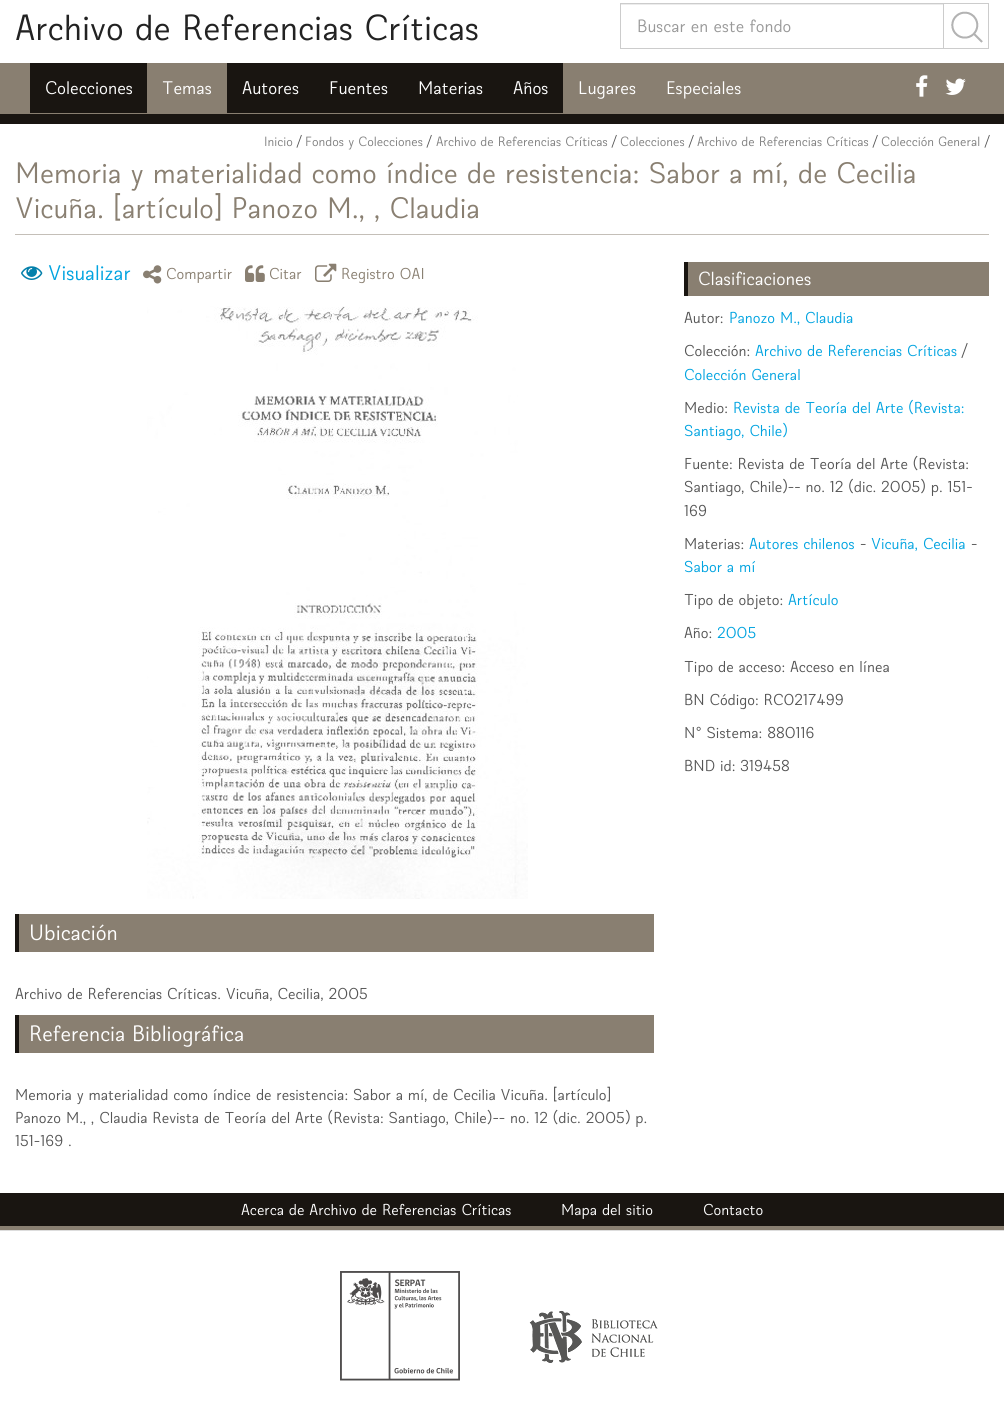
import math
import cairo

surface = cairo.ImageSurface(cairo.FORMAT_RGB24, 1004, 1401)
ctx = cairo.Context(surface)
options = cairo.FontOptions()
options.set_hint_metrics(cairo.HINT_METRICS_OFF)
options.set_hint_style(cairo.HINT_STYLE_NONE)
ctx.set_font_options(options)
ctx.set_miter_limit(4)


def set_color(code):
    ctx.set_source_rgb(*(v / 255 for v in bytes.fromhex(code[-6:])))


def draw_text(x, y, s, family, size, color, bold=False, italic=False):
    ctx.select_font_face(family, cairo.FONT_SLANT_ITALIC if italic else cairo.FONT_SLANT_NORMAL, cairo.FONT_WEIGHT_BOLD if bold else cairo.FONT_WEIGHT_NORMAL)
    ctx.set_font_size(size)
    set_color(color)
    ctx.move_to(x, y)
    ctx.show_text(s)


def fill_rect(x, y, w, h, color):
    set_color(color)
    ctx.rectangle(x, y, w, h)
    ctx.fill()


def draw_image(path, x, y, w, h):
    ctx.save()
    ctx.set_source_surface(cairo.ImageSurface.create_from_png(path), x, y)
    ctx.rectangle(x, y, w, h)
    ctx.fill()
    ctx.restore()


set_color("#ffffff")
ctx.paint()
draw_text(15, 40, "Archivo de Referencias Críticas", "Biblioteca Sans", 36.75, "#222222")
fill_rect(0, 63, 1004, 51, "#897f71")
fill_rect(0, 114, 1004, 10, "#191511")
fill_rect(621, 4, 322, 1, "#ececec")
ctx.rectangle(620.5, 3.5, 323, 45)
set_color("#cccccc")
ctx.set_line_width(1)
ctx.stroke()
draw_text(637, 32, "Buscar en este fondo", "Biblioteca Sans", 18, "#999999")
draw_image("assets/img1.png", 951, 11, 32, 32)
ctx.rectangle(943.5, 3.5, 45, 45)
set_color("#cccccc")
ctx.stroke()
fill_rect(30, 63, 117, 50, "#191511")
draw_text(45, 94, "Colecciones", "Biblioteca Sans", 18.5, "#ffffff")
draw_text(162, 94, "Temas", "Biblioteca Sans", 18.5, "#ffffff")
fill_rect(227, 63, 336, 50, "#191511")
draw_text(242, 94, "Autores", "Biblioteca Sans", 18.5, "#ffffff")
draw_text(329, 94, "Fuentes", "Biblioteca Sans", 18.5, "#ffffff")
draw_text(418, 94, "Materias", "Biblioteca Sans", 18.5, "#ffffff")
draw_text(513, 94, "Años", "Biblioteca Sans", 18.5, "#ffffff")
draw_text(578, 94, "Lugares", "Biblioteca Sans", 18.5, "#ffffff")
draw_text(666, 94, "Especiales", "Biblioteca Sans", 18.5, "#ffffff")
draw_image("assets/img2.png", 916, 75, 12, 22)
draw_image("assets/img3.png", 945, 78, 21, 17)
draw_text(264, 146, "Inicio", "Biblioteca Sans", 13.6, "#808080")
draw_text(297, 146, "/", "Biblioteca Sans", 13.6, "#555555")
draw_text(305, 146, "Fondos y Colecciones", "Biblioteca Sans", 13.6, "#808080")
draw_text(427, 146, "/", "Biblioteca Sans", 13.6, "#555555")
draw_text(436, 146, "Archivo de Referencias Críticas", "Biblioteca Sans", 13.6, "#808080")
draw_text(612, 146, "/", "Biblioteca Sans", 13.6, "#555555")
draw_text(620, 146, "Colecciones", "Biblioteca Sans", 13.6, "#808080")
draw_text(689, 146, "/", "Biblioteca Sans", 13.6, "#555555")
draw_text(697, 146, "Archivo de Referencias Críticas", "Biblioteca Sans", 13.6, "#808080")
draw_text(873, 146, "/", "Biblioteca Sans", 13.6, "#555555")
draw_text(881, 146, "Colección General", "Biblioteca Sans", 13.6, "#808080")
draw_text(985, 146, "/", "Biblioteca Sans", 13.6, "#555555")
fill_rect(15, 234, 974, 1, "#c4bfb8")
draw_text(15, 183, "Memoria y materialidad como índice de resistencia: Sabor a mí, de Cecilia", "Biblioteca Sans", 30, "#897f71")
draw_text(15, 218, "Vicuña. [artículo] Panozo M., , Claudia", "Biblioteca Sans", 30, "#897f71")
draw_image("assets/img4.png", 21, 266, 22, 14)
draw_text(48, 280, "Visualizar", "Biblioteca Sans", 21.5, "#00a3e0")
draw_image("assets/img5.png", 143, 265, 19, 19)
draw_text(166, 279, "Compartir", "Biblioteca Sans", 16, "#897f71")
draw_image("assets/img6.png", 245, 265, 20, 17)
draw_text(269, 279, "Citar", "Biblioteca Sans", 16, "#897f71")
draw_image("assets/img7.png", 315, 263, 22, 19)
draw_text(341, 279, "Registro OAI", "Biblioteca Sans", 16, "#897f71")
draw_image("assets/img8.png", 147, 306, 381, 593)
fill_rect(19, 914, 635, 38, "#897f71")
fill_rect(15, 914, 4, 38, "#191511")
draw_text(29, 940, "Ubicación", "Biblioteca Sans", 22.5, "#ffffff")
draw_text(15, 999, "Archivo de Referencias Críticas. Vicuña, Cecilia, 2005", "Biblioteca Sans", 16, "#555555")
fill_rect(19, 1015, 635, 38, "#897f71")
fill_rect(15, 1015, 4, 38, "#191511")
draw_text(29, 1041, "Referencia Bibliográfica", "Biblioteca Sans", 22.5, "#ffffff")
draw_text(15, 1100, "Memoria y materialidad como índice de resistencia: Sabor a mí, de Cecilia Vicuña. [artículo]", "Biblioteca Sans", 16, "#555555")
draw_text(15, 1123, "Panozo M., , Claudia Revista de Teoría del Arte (Revista: Santiago, Chile)-- no. 12 (dic. 2005) p.", "Biblioteca Sans", 16, "#555555")
draw_text(15, 1146, "151-169 .", "Biblioteca Sans", 16, "#555555")
fill_rect(688, 262, 301, 34, "#897f71")
fill_rect(684, 262, 4, 34, "#191511")
draw_text(698, 285, "Clasificaciones", "Biblioteca Sans", 19.25, "#ffffff")
draw_text(684, 323, "Autor:", "Biblioteca Sans", 16, "#555555")
draw_text(729, 323, "Panozo M., Claudia", "Biblioteca Sans", 16, "#00a3e0")
draw_text(684, 356, "Colección:", "Biblioteca Sans", 16, "#555555")
draw_text(755, 356, "Archivo de Referencias Críticas", "Biblioteca Sans", 16, "#00a3e0")
draw_text(962, 356, "/", "Biblioteca Sans", 16, "#555555")
draw_text(684, 380, "Colección General", "Biblioteca Sans", 16, "#00a3e0")
draw_text(684, 413, "Medio:", "Biblioteca Sans", 16, "#555555")
draw_text(733, 413, "Revista de Teoría del Arte (Revista:", "Biblioteca Sans", 16, "#00a3e0")
draw_text(684, 436, "Santiago, Chile)", "Biblioteca Sans", 16, "#00a3e0")
draw_text(684, 469, "Fuente: Revista de Teoría del Arte (Revista:", "Biblioteca Sans", 16, "#555555")
draw_text(684, 492, "Santiago, Chile)-- no. 12 (dic. 2005) p. 151-", "Biblioteca Sans", 16, "#555555")
draw_text(684, 516, "169", "Biblioteca Sans", 16, "#555555")
draw_text(684, 549, "Materias:", "Biblioteca Sans", 16, "#555555")
draw_text(749, 549, "Autores chilenos", "Biblioteca Sans", 16, "#00a3e0")
draw_text(860, 549, "-", "Biblioteca Sans", 16, "#555555")
draw_text(871, 549, "Vicuña, Cecilia", "Biblioteca Sans", 16, "#00a3e0")
draw_text(971, 549, "-", "Biblioteca Sans", 16, "#555555")
draw_text(684, 572, "Sabor a mí", "Biblioteca Sans", 16, "#00a3e0")
draw_text(684, 605, "Tipo de objeto:", "Biblioteca Sans", 16, "#555555")
draw_text(788, 605, "Artículo", "Biblioteca Sans", 16, "#00a3e0")
draw_text(684, 638, "Año:", "Biblioteca Sans", 16, "#555555")
draw_text(717, 638, "2005", "Biblioteca Sans", 16, "#00a3e0")
draw_text(684, 672, "Tipo de acceso: Acceso en línea", "Biblioteca Sans", 16, "#555555")
draw_text(684, 705, "BN Código: RC0217499", "Biblioteca Sans", 16, "#555555")
draw_text(684, 738, "N° Sistema: 880116", "Biblioteca Sans", 16, "#555555")
draw_text(684, 771, "BND id: 319458", "Biblioteca Sans", 16, "#555555")
fill_rect(0, 1193, 1004, 33, "#191511")
fill_rect(0, 1226, 1004, 4, "#897f71")
draw_text(241, 1215, "Acerca de Archivo de Referencias Críticas", "Biblioteca Sans", 16, "#ffffff")
draw_text(561, 1215, "Mapa del sitio", "Biblioteca Sans", 16, "#ffffff")
draw_text(703, 1215, "Contacto", "Biblioteca Sans", 16, "#ffffff")
fill_rect(0, 1230, 1004, 1, "#dddddd")
draw_image("assets/img9.png", 340, 1271, 120, 110)
draw_image("assets/img10.png", 529, 1310, 129, 53)
surface.write_to_png("output.png")
